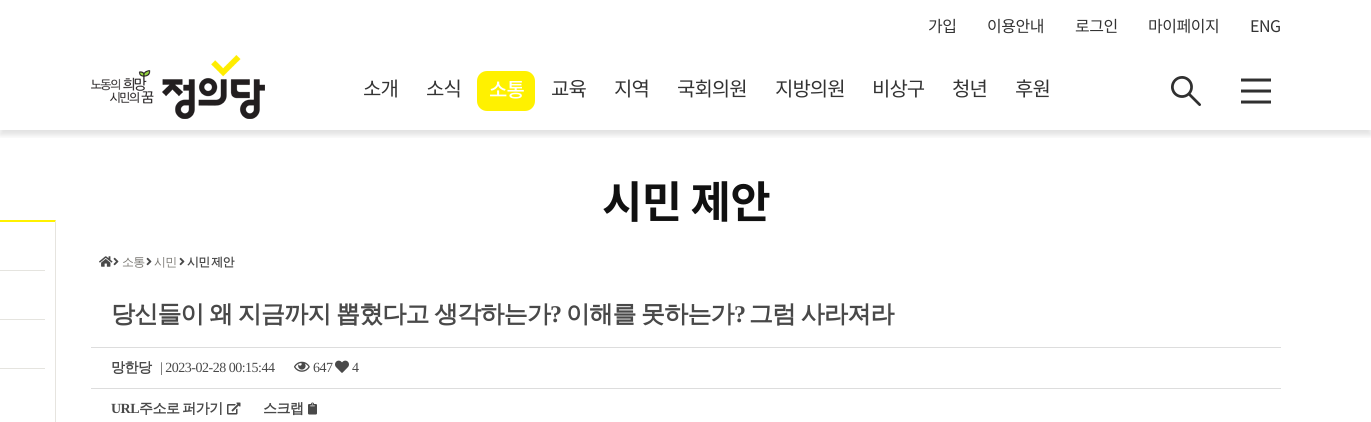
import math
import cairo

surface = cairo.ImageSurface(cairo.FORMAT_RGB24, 1371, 422)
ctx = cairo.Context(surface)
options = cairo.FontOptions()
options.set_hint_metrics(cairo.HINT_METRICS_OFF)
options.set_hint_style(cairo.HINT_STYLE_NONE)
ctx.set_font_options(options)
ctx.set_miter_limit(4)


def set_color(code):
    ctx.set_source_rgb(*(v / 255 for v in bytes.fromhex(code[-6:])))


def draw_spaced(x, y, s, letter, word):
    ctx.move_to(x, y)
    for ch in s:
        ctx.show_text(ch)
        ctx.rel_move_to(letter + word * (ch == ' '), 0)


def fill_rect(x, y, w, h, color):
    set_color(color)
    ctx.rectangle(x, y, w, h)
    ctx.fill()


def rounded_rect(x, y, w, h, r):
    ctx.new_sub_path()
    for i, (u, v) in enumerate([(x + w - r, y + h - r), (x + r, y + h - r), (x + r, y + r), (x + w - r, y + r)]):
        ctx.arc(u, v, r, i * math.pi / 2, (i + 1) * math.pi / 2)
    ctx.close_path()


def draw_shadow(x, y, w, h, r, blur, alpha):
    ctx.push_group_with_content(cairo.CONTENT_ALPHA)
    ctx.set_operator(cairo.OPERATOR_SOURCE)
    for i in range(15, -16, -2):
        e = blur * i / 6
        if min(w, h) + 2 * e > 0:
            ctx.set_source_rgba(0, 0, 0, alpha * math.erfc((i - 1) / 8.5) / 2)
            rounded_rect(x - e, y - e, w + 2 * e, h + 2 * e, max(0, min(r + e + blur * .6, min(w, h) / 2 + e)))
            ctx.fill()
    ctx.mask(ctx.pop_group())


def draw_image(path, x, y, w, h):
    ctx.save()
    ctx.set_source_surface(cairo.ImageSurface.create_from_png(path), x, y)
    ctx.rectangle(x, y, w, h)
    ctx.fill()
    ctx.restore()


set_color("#ffffff")
ctx.paint()
ctx.select_font_face("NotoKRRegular")
ctx.set_font_size(16)
set_color("#333333")
draw_spaced(928, 32, "가입", -0.5, 0)
draw_spaced(987, 32, "이용안내", -0.5, 0)
draw_spaced(1075, 32, "로그인", -0.5, 0)
draw_spaced(1148, 32, "마이페이지", -0.5, 0)
draw_spaced(1250, 32, "ENG", -0.5, 0)
ctx.save()
ctx.rectangle(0, 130, 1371, 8)
ctx.clip()
set_color("#000000")
draw_shadow(0, 59, 1371, 76, 0, 3, 0.12)
ctx.restore()
draw_image("assets/img1.png", 91, 55, 174, 64)
ctx.set_font_size(20)
draw_spaced(363, 96, "소개", -1, 0)
draw_spaced(426, 96, "소식", -1, 0)
set_color("#fff100")
rounded_rect(477, 71, 58, 40, 10)
ctx.fill()
ctx.select_font_face("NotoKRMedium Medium")
set_color("#ffffff")
draw_spaced(489, 97, "소통", -1, 0)
ctx.select_font_face("NotoKRRegular")
set_color("#333333")
draw_spaced(551, 96, "교육", -1, 0)
draw_spaced(614, 96, "지역", -1, 0)
draw_spaced(677, 96, "국회의원", -1, 0)
draw_spaced(775, 96, "지방의원", -1, 0)
draw_spaced(872, 96, "비상구", -1, 0)
draw_spaced(952, 96, "청년", -1, 0)
draw_spaced(1015, 96, "후원", -1, 0)
draw_image("assets/img2.png", 1171, 76, 30, 30)
draw_image("assets/img3.png", 1241, 78, 30, 26)
set_color("#fff100")
ctx.new_path()
ctx.move_to(-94, 220)
ctx.line_to(56, 220)
ctx.line_to(55, 222)
ctx.line_to(-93, 222)
ctx.close_path()
ctx.fill()
set_color("#e6e4df")
ctx.new_path()
ctx.move_to(56, 220)
ctx.line_to(56, 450)
ctx.line_to(55, 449)
ctx.line_to(55, 222)
ctx.close_path()
ctx.fill()
fill_rect(0, 270, 45, 1, "#e5e4df")
fill_rect(0, 319, 45, 1, "#e5e4df")
fill_rect(0, 368, 45, 1, "#e5e4df")
ctx.select_font_face("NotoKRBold", cairo.FONT_SLANT_NORMAL, cairo.FONT_WEIGHT_BOLD)
ctx.set_font_size(44)
set_color("#111111")
draw_spaced(602, 218, "시민 제안", -0.8, 0)
draw_image("assets/img4.png", 99, 256, 14, 11)
draw_image("assets/img5.png", 113, 257, 6, 9)
ctx.select_font_face("WenQuanYi Zen Hei Medium")
ctx.set_font_size(12)
set_color("#7a7873")
draw_spaced(122, 266, "소통", -0.8, 0)
draw_image("assets/img5.png", 146, 257, 6, 9)
draw_spaced(154, 266, "시민", -0.8, 0)
draw_image("assets/img5.png", 179, 257, 6, 9)
ctx.select_font_face("WenQuanYi Zen Hei", cairo.FONT_SLANT_NORMAL, cairo.FONT_WEIGHT_BOLD)
set_color("#494949")
draw_spaced(187, 266, "시민 제안", -0.8, -1)
fill_rect(91, 347, 1190, 1, "#dddddd")
ctx.set_font_size(24)
set_color("#494949")
draw_spaced(111, 322, "당신들이 왜 지금까지 뽑혔다고 생각하는가", -0.8, -1)
ctx.select_font_face("Liberation Serif", cairo.FONT_SLANT_NORMAL, cairo.FONT_WEIGHT_BOLD)
draw_spaced(550, 322, "?", -0.8, 0)
ctx.select_font_face("WenQuanYi Zen Hei", cairo.FONT_SLANT_NORMAL, cairo.FONT_WEIGHT_BOLD)
draw_spaced(566, 322, "이해를 못하는가", -0.8, -1)
ctx.select_font_face("Liberation Serif", cairo.FONT_SLANT_NORMAL, cairo.FONT_WEIGHT_BOLD)
draw_spaced(734, 322, "?", -0.8, 0)
ctx.select_font_face("WenQuanYi Zen Hei", cairo.FONT_SLANT_NORMAL, cairo.FONT_WEIGHT_BOLD)
draw_spaced(749, 322, "그럼 사라져라", -0.8, -1)
fill_rect(91, 388, 1190, 1, "#dddddd")
ctx.set_font_size(14)
set_color("#494949")
draw_spaced(111, 372, "망한당", -0.5, 0)
ctx.select_font_face("Liberation Serif")
draw_spaced(160, 372, "| 2023-02-28 00:15:44", -0.5, 0)
draw_image("assets/img6.png", 294, 361, 16, 11)
draw_spaced(313, 372, "647", -0.5, 0)
draw_image("assets/img7.png", 335, 360, 14, 13)
draw_spaced(352, 372, "4", -0.5, 0)
ctx.select_font_face("Liberation Serif", cairo.FONT_SLANT_NORMAL, cairo.FONT_WEIGHT_BOLD)
draw_spaced(111, 413, "URL", -0.5, 0)
ctx.select_font_face("WenQuanYi Zen Hei", cairo.FONT_SLANT_NORMAL, cairo.FONT_WEIGHT_BOLD)
draw_spaced(139, 413, "주소로 퍼가기", -0.5, -1)
draw_image("assets/img8.png", 227, 402, 14, 13)
draw_spaced(263, 413, "스크랩", -0.5, 0)
draw_image("assets/img9.png", 308, 402, 9, 13)
surface.write_to_png("output.png")
